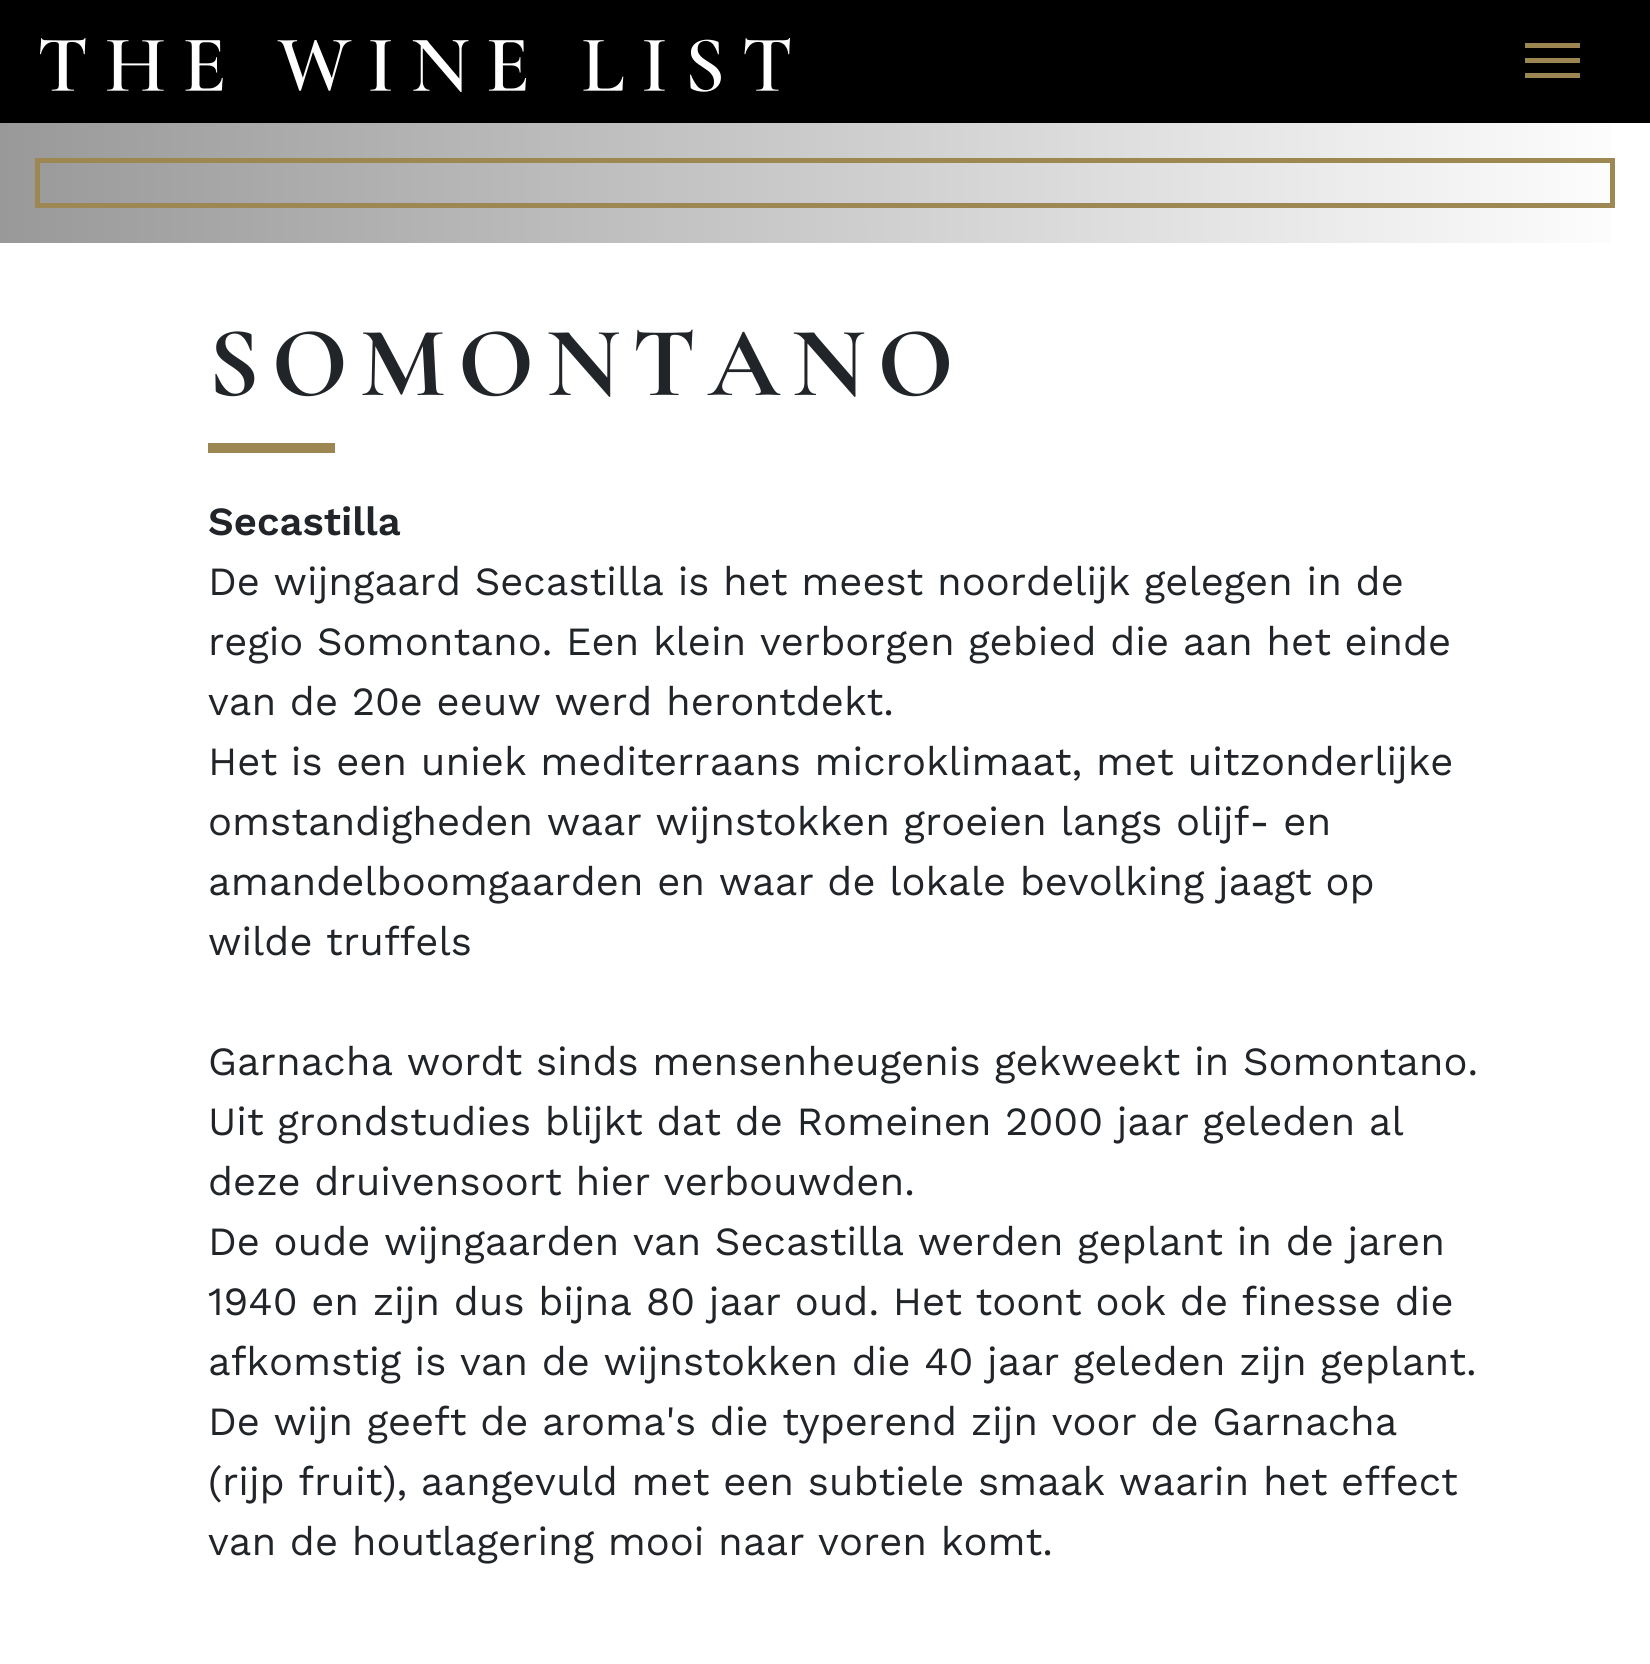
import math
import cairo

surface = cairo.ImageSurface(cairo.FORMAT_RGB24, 1650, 1664)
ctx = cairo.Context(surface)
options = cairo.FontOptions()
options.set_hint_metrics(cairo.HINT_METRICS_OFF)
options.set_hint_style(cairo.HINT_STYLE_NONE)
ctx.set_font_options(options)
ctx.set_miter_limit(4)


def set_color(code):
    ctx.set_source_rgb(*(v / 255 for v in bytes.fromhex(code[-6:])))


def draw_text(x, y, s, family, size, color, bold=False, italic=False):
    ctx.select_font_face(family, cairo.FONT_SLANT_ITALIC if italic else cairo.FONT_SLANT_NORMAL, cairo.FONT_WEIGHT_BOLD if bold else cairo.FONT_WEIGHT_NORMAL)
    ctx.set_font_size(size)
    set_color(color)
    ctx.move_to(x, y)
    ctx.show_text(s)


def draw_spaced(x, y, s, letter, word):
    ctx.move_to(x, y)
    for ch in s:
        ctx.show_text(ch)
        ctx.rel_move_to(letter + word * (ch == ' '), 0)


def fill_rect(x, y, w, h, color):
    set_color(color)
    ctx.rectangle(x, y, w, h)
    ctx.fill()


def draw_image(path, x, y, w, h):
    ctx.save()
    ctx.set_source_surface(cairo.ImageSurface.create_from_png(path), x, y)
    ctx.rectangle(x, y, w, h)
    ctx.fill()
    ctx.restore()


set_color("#ffffff")
ctx.paint()
fill_rect(0, 0, 1650, 123, "#000000")
draw_image("assets/img1.png", 40, 38, 750, 55)
fill_rect(1525, 43, 55, 5, "#9c8753")
fill_rect(1525, 58, 55, 5, "#9c8753")
fill_rect(1525, 73, 55, 5, "#9c8753")
gradient = cairo.LinearGradient(0, 183, 1650, 182)
gradient.add_color_stop_rgba(0, 0.6, 0.6, 0.6, 1)
gradient.add_color_stop_rgba(1, 1, 1, 1, 1)
ctx.set_source(gradient)
ctx.rectangle(0, 123, 1610, 120)
ctx.fill()
ctx.rectangle(37.5, 160.5, 1575, 45)
set_color("#9d8853")
ctx.set_line_width(5)
ctx.stroke()
ctx.select_font_face("Cormorant Garamond Light")
ctx.set_font_size(100)
set_color("#212529")
draw_spaced(208, 395, "SOMONTANO", 12, 0)
fill_rect(208, 443, 127, 10, "#9c8753")
draw_text(208, 535, "Secastilla", "Work Sans SemiBold", 40, "#212529")
draw_text(208, 595, "De wijngaard Secastilla is het meest noordelijk gelegen in de", "Work Sans", 40, "#212529")
draw_text(208, 655, "regio Somontano. Een klein verborgen gebied die aan het einde", "Work Sans", 40, "#212529")
draw_text(208, 715, "van de 20e eeuw werd herontdekt.", "Work Sans", 40, "#212529")
draw_text(208, 775, "Het is een uniek mediterraans microklimaat, met uitzonderlijke", "Work Sans", 40, "#212529")
draw_text(208, 835, "omstandigheden waar wijnstokken groeien langs olijf- en", "Work Sans", 40, "#212529")
draw_text(208, 895, "amandelboomgaarden en waar de lokale bevolking jaagt op", "Work Sans", 40, "#212529")
draw_text(208, 955, "wilde truffels", "Work Sans", 40, "#212529")
draw_text(208, 1075, "Garnacha wordt sinds mensenheugenis gekweekt in Somontano.", "Work Sans", 40, "#212529")
draw_text(208, 1135, "Uit grondstudies blijkt dat de Romeinen 2000 jaar geleden al", "Work Sans", 40, "#212529")
draw_text(208, 1195, "deze druivensoort hier verbouwden.", "Work Sans", 40, "#212529")
draw_text(208, 1255, "De oude wijngaarden van Secastilla werden geplant in de jaren", "Work Sans", 40, "#212529")
draw_text(208, 1315, "1940 en zijn dus bijna 80 jaar oud. Het toont ook de finesse die", "Work Sans", 40, "#212529")
draw_text(208, 1375, "afkomstig is van de wijnstokken die 40 jaar geleden zijn geplant.", "Work Sans", 40, "#212529")
draw_text(208, 1435, "De wijn geeft de aroma's die typerend zijn voor de Garnacha", "Work Sans", 40, "#212529")
draw_text(208, 1495, "(rijp fruit), aangevuld met een subtiele smaak waarin het effect", "Work Sans", 40, "#212529")
draw_text(208, 1555, "van de houtlagering mooi naar voren komt.", "Work Sans", 40, "#212529")
surface.write_to_png("output.png")
